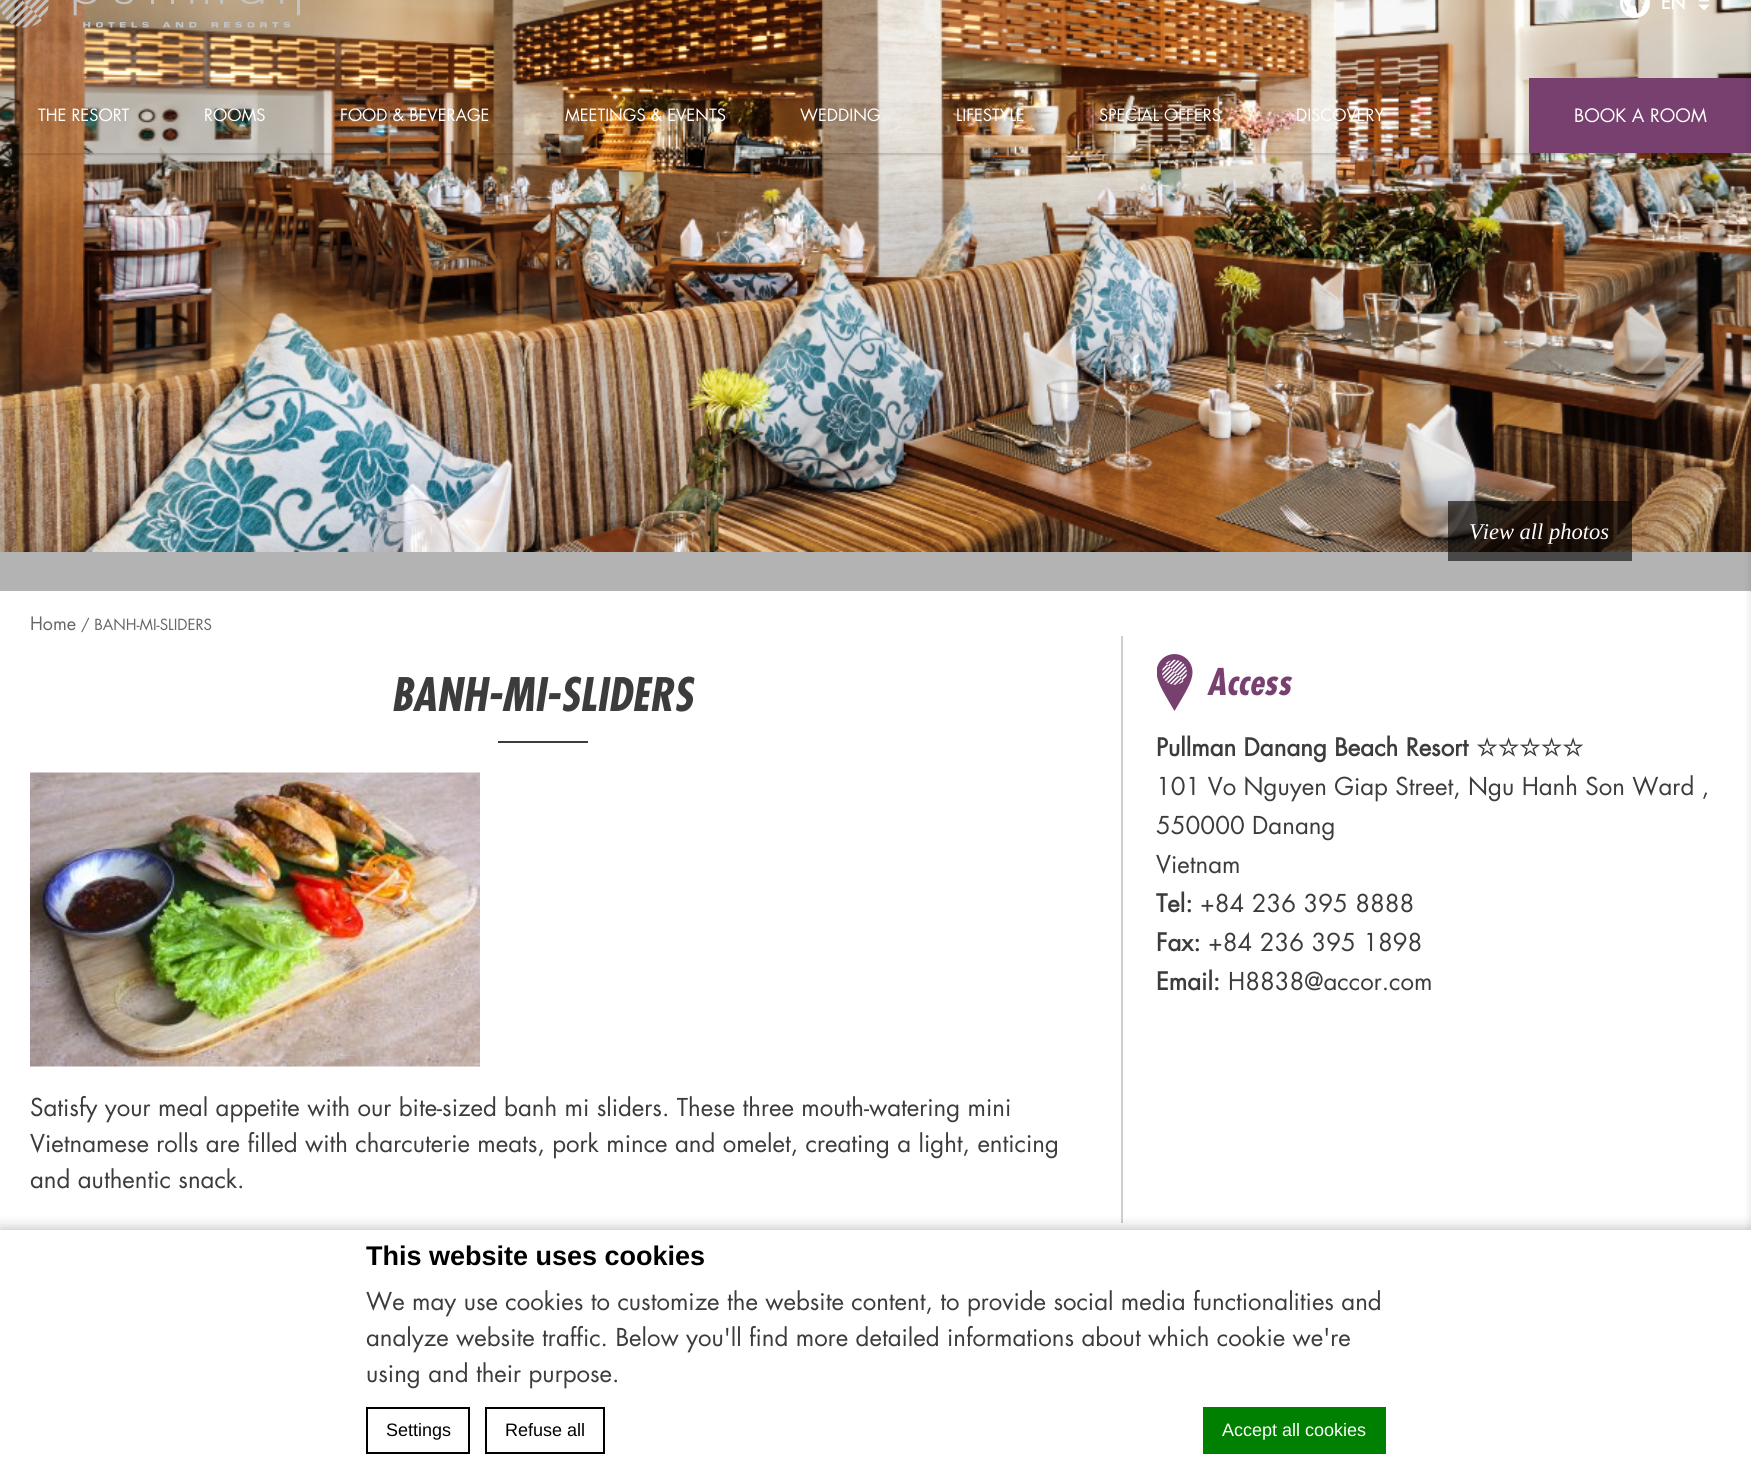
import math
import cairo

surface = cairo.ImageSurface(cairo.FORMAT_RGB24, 1751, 1476)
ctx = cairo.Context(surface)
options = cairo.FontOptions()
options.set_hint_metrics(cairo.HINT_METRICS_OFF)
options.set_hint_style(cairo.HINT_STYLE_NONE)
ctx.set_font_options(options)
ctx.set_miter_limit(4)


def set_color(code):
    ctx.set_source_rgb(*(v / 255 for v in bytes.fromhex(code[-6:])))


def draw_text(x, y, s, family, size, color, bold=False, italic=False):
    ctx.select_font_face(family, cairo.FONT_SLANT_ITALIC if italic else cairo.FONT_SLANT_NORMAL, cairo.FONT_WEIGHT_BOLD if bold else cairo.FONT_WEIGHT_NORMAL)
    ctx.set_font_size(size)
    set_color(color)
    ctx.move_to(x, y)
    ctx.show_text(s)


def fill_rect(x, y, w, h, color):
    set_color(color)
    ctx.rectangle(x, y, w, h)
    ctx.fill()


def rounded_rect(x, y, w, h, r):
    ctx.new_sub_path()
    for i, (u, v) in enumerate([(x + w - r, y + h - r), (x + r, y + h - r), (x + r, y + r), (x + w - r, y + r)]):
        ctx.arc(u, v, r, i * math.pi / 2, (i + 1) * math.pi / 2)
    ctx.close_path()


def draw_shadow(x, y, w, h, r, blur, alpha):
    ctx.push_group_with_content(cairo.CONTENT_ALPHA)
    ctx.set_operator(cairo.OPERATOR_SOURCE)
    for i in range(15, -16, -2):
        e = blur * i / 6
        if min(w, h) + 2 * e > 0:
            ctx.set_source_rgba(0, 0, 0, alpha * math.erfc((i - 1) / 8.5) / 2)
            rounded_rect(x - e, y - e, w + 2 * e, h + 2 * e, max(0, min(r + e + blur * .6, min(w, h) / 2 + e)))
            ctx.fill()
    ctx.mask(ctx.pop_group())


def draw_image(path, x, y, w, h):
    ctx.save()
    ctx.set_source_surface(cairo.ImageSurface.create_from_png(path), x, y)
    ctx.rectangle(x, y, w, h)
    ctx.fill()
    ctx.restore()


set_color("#ffffff")
ctx.paint()
draw_image("assets/img4.png", 0, 0, 1751, 552)
ctx.save()
ctx.rectangle(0, 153, 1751, 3)
ctx.clip()
set_color("#000000")
draw_shadow(0, -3, 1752, 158, 0, 1, 0.15)
ctx.restore()
draw_image("assets/img1.png", 0, 0, 300, 28)
draw_image("assets/img2.png", 1620, 0, 30, 18)
draw_text(1661, 9, "EN", "Futura", 18, "#ffffff", bold=True)
draw_image("assets/img3.png", 1698, 0, 12, 11)
draw_text(38, 121, "THE RESORT", "Futura", 16.5, "#ffffff")
draw_text(204, 121, "ROOMS", "Futura", 16.5, "#ffffff")
draw_text(340, 121, "FOOD & BEVERAGE", "Futura", 16.5, "#ffffff")
draw_text(565, 121, "MEETINGS & EVENTS", "Futura", 16.5, "#ffffff")
draw_text(800, 121, "WEDDING", "Futura", 16.5, "#ffffff")
draw_text(956, 121, "LIFESTYLE", "Futura", 16.5, "#ffffff")
draw_text(1099, 121, "SPECIAL OFFERS", "Futura", 16.5, "#ffffff")
draw_text(1296, 121, "DISCOVERY", "Futura", 16.5, "#ffffff")
fill_rect(1529, 78, 222, 75, "#77406f")
draw_text(1574, 122, "BOOK A ROOM", "Futura", 18, "#ffffff")
fill_rect(0, 552, 1751, 39, "#b3b3b3")
set_color("#000000")
draw_shadow(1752, 5, 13, 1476, 0, 4.5, 0.15)
ctx.set_source_rgba(0, 0, 0, 0.6)
ctx.rectangle(1448, 501, 184, 60)
ctx.fill()
draw_text(1469, 539, "View all photos", "Liberation Serif", 22.5, "#ffffff", italic=True)
fill_rect(1121, 636, 2, 587, "#cfcfcf")
draw_text(30, 630, "Home", "Futura", 18, "#666666")
draw_text(81, 630, "/ BANH-MI-SLIDERS", "Futura", 15, "#666666")
draw_text(391, 711, "BANH-MI-SLIDERS", "Futura", 45, "#3d3c3c", bold=True, italic=True)
fill_rect(498, 741, 90, 2, "#3d3c3c")
draw_image("assets/img5.png", 30, 772, 450, 295)
draw_text(30, 1116, "Satisfy your meal appetite with our bite-sized banh mi sliders. These three mouth-watering mini", "Futura", 24, "#3d3c3c")
draw_text(30, 1152, "Vietnamese rolls are filled with charcuterie meats, pork mince and omelet, creating a light, enticing", "Futura", 24, "#3d3c3c")
draw_text(30, 1188, "and authentic snack.", "Futura", 24, "#3d3c3c")
draw_image("assets/img6.png", 1157, 654, 36, 57)
draw_text(1207, 695, "Access", "Futura", 36, "#77406f", bold=True, italic=True)
draw_text(1156, 756, "Pullman Danang Beach Resort", "Futura", 24, "#3d3c3c", bold=True)
draw_text(1476, 756, "☆☆☆☆☆", "DejaVu Sans", 24, "#3d3c3c", bold=True)
draw_text(1156, 795, "101 Vo Nguyen Giap Street, Ngu Hanh Son Ward ,", "Futura", 24, "#3d3c3c")
draw_text(1156, 834, "550000 Danang", "Futura", 24, "#3d3c3c")
draw_text(1156, 873, "Vietnam", "Futura", 24, "#3d3c3c")
draw_text(1156, 912, "Tel:", "Futura", 24, "#3d3c3c", bold=True)
draw_text(1200, 912, "+84 236 395 8888", "Futura", 24, "#3d3c3c")
draw_text(1156, 951, "Fax:", "Futura", 24, "#3d3c3c", bold=True)
draw_text(1208, 951, "+84 236 395 1898", "Futura", 24, "#3d3c3c")
draw_text(1156, 990, "Email:", "Futura", 24, "#3d3c3c", bold=True)
draw_text(1228, 990, "H8838@accor.com", "Futura", 24, "#3d3c3c")
set_color("#000000")
draw_shadow(0, 1230, 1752, 246, 0, 7.5, 0.3)
fill_rect(0, 1230, 1751, 246, "#ffffff")
draw_text(366, 1265, "This website uses cookies", "Liberation Sans", 27, "#000000", bold=True)
draw_text(366, 1310, "We may use cookies to customize the website content, to provide social media functionalities and", "Futura", 24, "#3d3c3c")
draw_text(366, 1346, "analyze website traffic. Below you'll find more detailed informations about which cookie we're", "Futura", 24, "#3d3c3c")
draw_text(366, 1382, "using and their purpose.", "Futura", 24, "#3d3c3c")
ctx.rectangle(367, 1408, 102, 45)
set_color("#000000")
ctx.stroke()
draw_text(386, 1436, "Settings", "Liberation Sans", 18, "#000000")
ctx.rectangle(486, 1408, 118, 45)
ctx.stroke()
draw_text(505, 1436, "Refuse all", "Liberation Sans", 18, "#000000")
fill_rect(1203, 1407, 183, 47, "#008000")
draw_text(1222, 1436, "Accept all cookies", "Liberation Sans", 18, "#ffffff")
surface.write_to_png("output.png")
